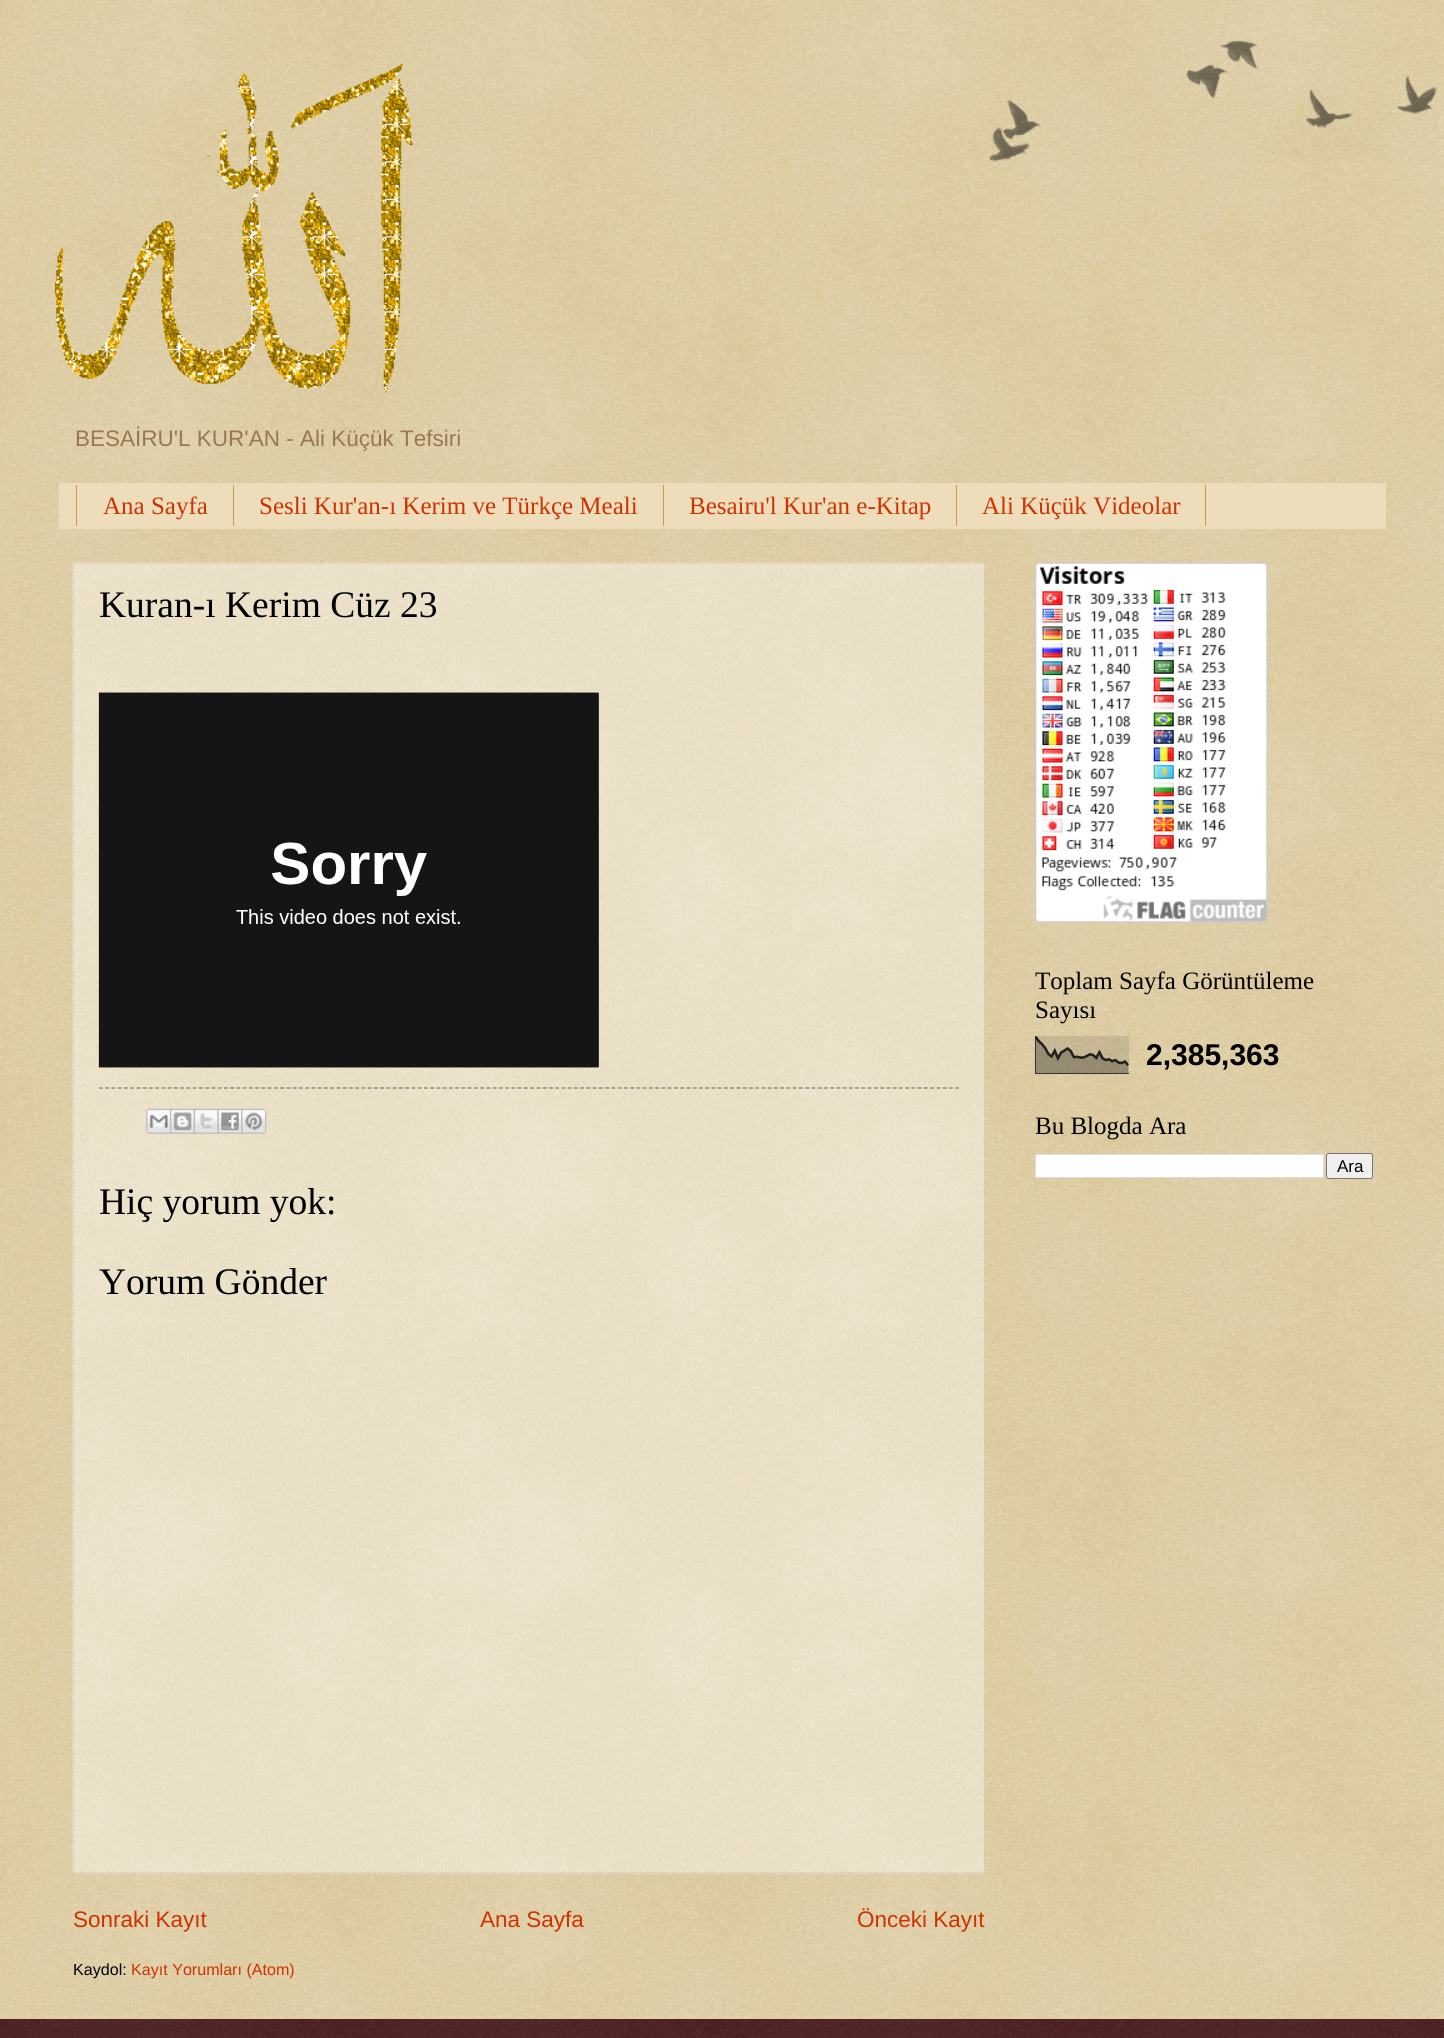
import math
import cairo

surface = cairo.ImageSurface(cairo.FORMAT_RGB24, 1444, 2038)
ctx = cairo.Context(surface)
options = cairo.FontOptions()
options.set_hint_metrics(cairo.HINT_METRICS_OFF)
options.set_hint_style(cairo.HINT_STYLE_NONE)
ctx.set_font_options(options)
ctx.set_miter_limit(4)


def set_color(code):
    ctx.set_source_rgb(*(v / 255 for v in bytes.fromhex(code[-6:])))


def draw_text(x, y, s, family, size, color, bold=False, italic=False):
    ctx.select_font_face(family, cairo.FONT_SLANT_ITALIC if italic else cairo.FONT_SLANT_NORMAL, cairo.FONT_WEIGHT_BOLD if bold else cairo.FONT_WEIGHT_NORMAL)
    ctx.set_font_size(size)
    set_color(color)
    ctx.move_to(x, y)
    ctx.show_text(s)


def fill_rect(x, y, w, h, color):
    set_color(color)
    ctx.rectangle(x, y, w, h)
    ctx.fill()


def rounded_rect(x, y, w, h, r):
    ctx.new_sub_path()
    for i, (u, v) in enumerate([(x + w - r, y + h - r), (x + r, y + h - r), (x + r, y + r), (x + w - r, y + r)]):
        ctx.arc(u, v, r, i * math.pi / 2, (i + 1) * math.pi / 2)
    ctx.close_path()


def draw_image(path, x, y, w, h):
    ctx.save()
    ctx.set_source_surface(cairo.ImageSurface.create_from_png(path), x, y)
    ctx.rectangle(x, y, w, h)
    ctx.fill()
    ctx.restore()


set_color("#c0a154")
ctx.paint()
draw_image("assets/img1.png", 0, 0, 1444, 2019)
draw_image("assets/img2.png", 989, 40, 449, 122)
draw_image("assets/img3.png", 54, 63, 359, 330)
draw_text(75, 446, "BESAİRU'L KUR'AN - Ali Küçük Tefsiri", "Liberation Sans", 22.5, "#997755")
fill_rect(59, 483, 1327, 46, "#eeddbb")
fill_rect(233, 485, 1, 41, "#c0a154")
fill_rect(76, 485, 1, 41, "#c0a154")
draw_text(103, 514, "Ana Sayfa", "Liberation Serif", 25, "#cc3300")
fill_rect(663, 485, 1, 41, "#c0a154")
draw_text(259, 514, "Sesli Kur'an-ı Kerim ve Türkçe Meali", "Liberation Serif", 25, "#cc3300")
fill_rect(956, 485, 1, 41, "#c0a154")
draw_text(689, 514, "Besairu'l Kur'an e-Kitap", "Liberation Serif", 25, "#cc3300")
fill_rect(1205, 485, 1, 41, "#c0a154")
draw_text(982, 514, "Ali Küçük Videolar", "Liberation Serif", 25, "#cc3300")
ctx.set_source_rgba(1, 1, 1, 0.4)
ctx.rectangle(72, 562, 913, 1312)
ctx.fill()
ctx.new_path()
ctx.move_to(72.5, 563)
ctx.line_to(985, 563)
set_color("#ccbb99")
ctx.set_line_width(1.2)
ctx.set_dash([1.25, 1.25])
ctx.stroke()
ctx.new_path()
ctx.move_to(984.5, 562.5)
ctx.line_to(984.5, 1874)
ctx.stroke()
ctx.new_path()
ctx.move_to(72.5, 1873)
ctx.line_to(985, 1873)
ctx.stroke()
ctx.new_path()
ctx.move_to(73, 562.5)
ctx.line_to(73, 1874)
ctx.stroke()
draw_text(99, 617, "Kuran-ı Kerim Cüz 23", "Liberation Serif", 37.5, "#000000")
draw_image("assets/img4.png", 98, 692, 501, 376)
ctx.new_path()
ctx.move_to(99, 1088)
ctx.line_to(959, 1088)
set_color("#777777")
ctx.set_dash([3.75, 2.5])
ctx.stroke()
draw_image("assets/img5.png", 146, 1108, 26, 26)
draw_image("assets/img6.png", 170, 1108, 25, 26)
draw_image("assets/img7.png", 193, 1108, 26, 26)
draw_image("assets/img8.png", 217, 1108, 26, 26)
draw_image("assets/img9.png", 241, 1108, 26, 26)
draw_text(99, 1214, "Hiç yorum yok:", "Liberation Serif", 37.5, "#000000")
draw_text(99, 1294, "Yorum Gönder", "Liberation Serif", 37.5, "#000000")
draw_text(73, 1927, "Sonraki Kayıt", "Liberation Sans", 22.5, "#cc3300")
draw_text(480, 1927, "Ana Sayfa", "Liberation Sans", 22.5, "#cc3300")
draw_text(857, 1927, "Önceki Kayıt", "Liberation Sans", 22.5, "#cc3300")
draw_text(73, 1975, "Kaydol:", "Liberation Sans", 16.1, "#000000")
draw_text(131, 1975, "Kayıt Yorumları (Atom)", "Liberation Sans", 16.1, "#cc3300")
draw_image("assets/img10.png", 1035, 562, 233, 361)
draw_text(1035, 989, "Toplam Sayfa Görüntüleme", "Liberation Serif", 25, "#000000")
draw_text(1035, 1018, "Sayısı", "Liberation Serif", 25, "#000000")
draw_image("assets/img11.png", 1035, 1036, 94, 38)
draw_text(1146, 1065, "2,385,363", "Liberation Sans", 30, "#000000", bold=True)
draw_text(1035, 1134, "Bu Blogda Ara", "Liberation Serif", 25, "#000000")
set_color("#ffffff")
ctx.rectangle(1035.5, 1154.5, 288, 23)
ctx.fill_preserve()
set_color("#dddddd")
ctx.set_line_width(1)
ctx.set_dash([])
ctx.stroke()
set_color("#efefef")
rounded_rect(1326.5, 1153.5, 46, 25, 2)
ctx.fill_preserve()
set_color("#767676")
ctx.stroke()
draw_text(1337, 1172, "Ara", "Liberation Sans", 17, "#000000")
fill_rect(0, 2019, 1444, 19, "#330000")
draw_image("assets/img12.png", 0, 2018, 1444, 20)
surface.write_to_png("output.png")
